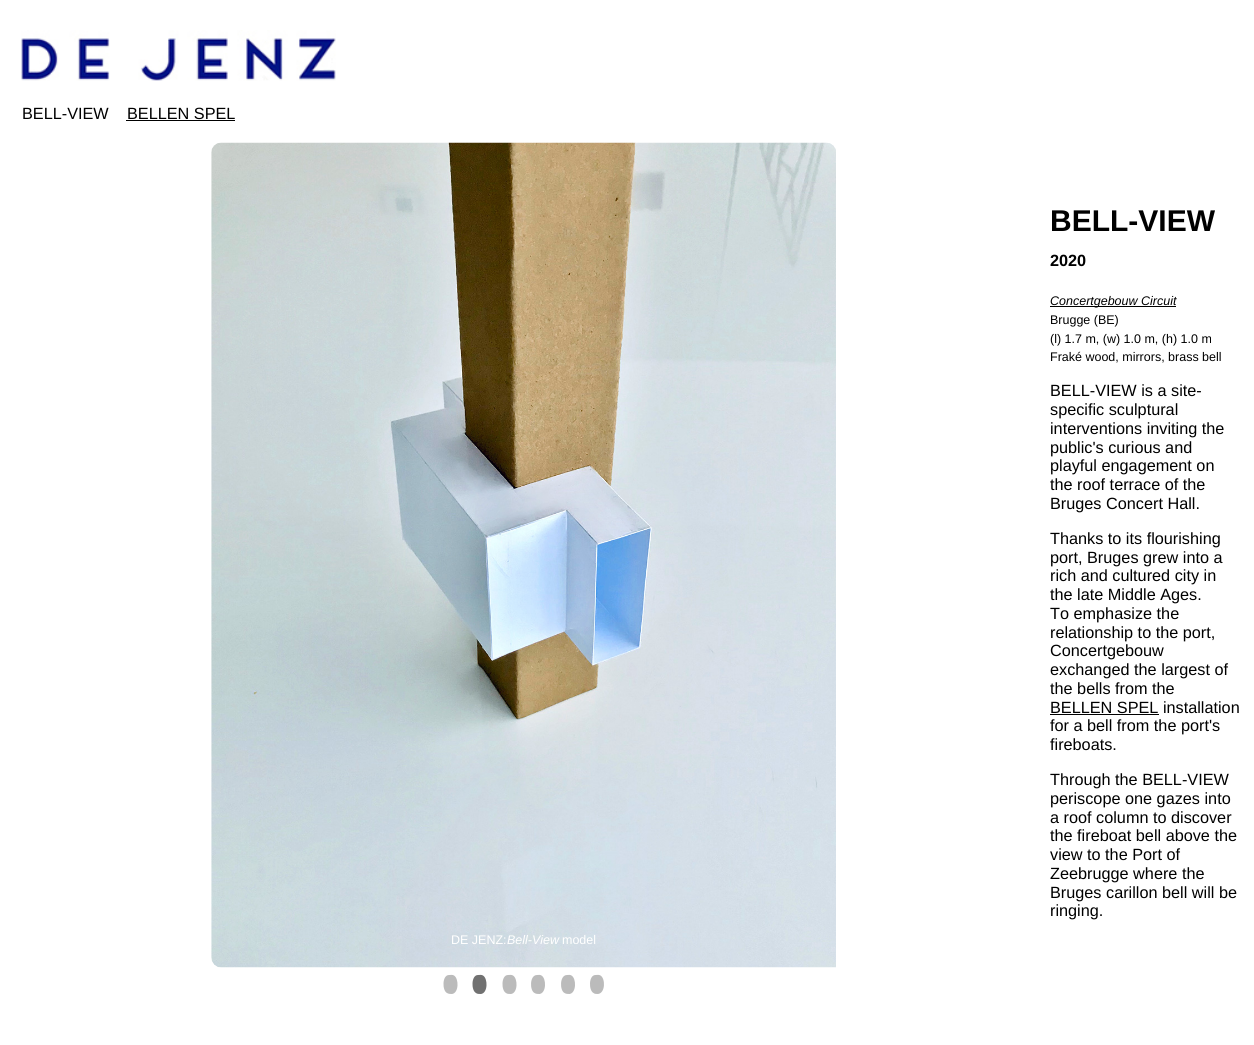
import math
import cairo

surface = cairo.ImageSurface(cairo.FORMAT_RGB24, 1254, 1045)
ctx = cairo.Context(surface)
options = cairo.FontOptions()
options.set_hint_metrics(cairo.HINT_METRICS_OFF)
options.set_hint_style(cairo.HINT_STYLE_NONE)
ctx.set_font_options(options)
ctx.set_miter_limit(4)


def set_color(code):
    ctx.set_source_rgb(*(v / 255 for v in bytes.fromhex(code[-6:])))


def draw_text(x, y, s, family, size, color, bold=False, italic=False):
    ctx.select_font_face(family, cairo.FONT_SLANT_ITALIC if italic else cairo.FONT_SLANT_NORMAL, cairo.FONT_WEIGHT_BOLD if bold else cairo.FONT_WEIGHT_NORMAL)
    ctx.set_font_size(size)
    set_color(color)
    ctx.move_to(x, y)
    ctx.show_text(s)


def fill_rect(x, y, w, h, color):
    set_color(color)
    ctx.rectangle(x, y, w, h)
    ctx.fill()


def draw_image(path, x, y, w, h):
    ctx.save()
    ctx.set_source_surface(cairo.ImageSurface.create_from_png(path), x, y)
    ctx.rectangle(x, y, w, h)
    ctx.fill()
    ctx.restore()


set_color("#ffffff")
ctx.paint()
draw_image("assets/img1.png", 21, 30, 315, 51)
draw_text(22, 119, "BELL-VIEW", "Liberation Sans", 16.25, "#000000")
draw_text(127, 119, "BELLEN SPEL", "Liberation Sans", 16.25, "#000000")
fill_rect(126, 120, 109, 1, "#000000")
draw_text(1050, 231, "BELL-VIEW", "Liberation Sans", 30, "#000000", bold=True)
draw_text(1050, 266, "2020", "Liberation Sans", 16.25, "#000000", bold=True)
fill_rect(1050, 306, 126, 1, "#000000")
draw_text(1050, 305, "Concertgebouw Circuit", "Liberation Sans", 12.5, "#000000", italic=True)
draw_text(1050, 324, "Brugge (BE)", "Liberation Sans", 12.5, "#000000")
draw_text(1050, 343, "(l) 1.7 m, (w) 1.0 m, (h) 1.0 m", "Liberation Sans", 12.5, "#000000")
draw_text(1050, 361, "Fraké wood, mirrors, brass bell", "Liberation Sans", 12.5, "#000000")
draw_text(1050, 396, "BELL-VIEW is a site-", "Liberation Sans", 16.25, "#000000")
draw_text(1050, 415, "specific sculptural", "Liberation Sans", 16.25, "#000000")
draw_text(1050, 434, "interventions inviting the", "Liberation Sans", 16.25, "#000000")
draw_text(1050, 453, "public's curious and", "Liberation Sans", 16.25, "#000000")
draw_text(1050, 471, "playful engagement on", "Liberation Sans", 16.25, "#000000")
draw_text(1050, 490, "the roof terrace of the", "Liberation Sans", 16.25, "#000000")
draw_text(1050, 509, "Bruges Concert Hall.", "Liberation Sans", 16.25, "#000000")
draw_text(1050, 544, "Thanks to its flourishing", "Liberation Sans", 16.25, "#000000")
draw_text(1050, 563, "port, Bruges grew into a", "Liberation Sans", 16.25, "#000000")
draw_text(1050, 581, "rich and cultured city in", "Liberation Sans", 16.25, "#000000")
draw_text(1050, 600, "the late Middle Ages.", "Liberation Sans", 16.25, "#000000")
draw_text(1050, 619, "To emphasize the", "Liberation Sans", 16.25, "#000000")
draw_text(1050, 638, "relationship to the port,", "Liberation Sans", 16.25, "#000000")
draw_text(1050, 656, "Concertgebouw", "Liberation Sans", 16.25, "#000000")
draw_text(1050, 675, "exchanged the largest of", "Liberation Sans", 16.25, "#000000")
draw_text(1050, 694, "the bells from the", "Liberation Sans", 16.25, "#000000")
draw_text(1050, 713, "BELLEN SPEL installation", "Liberation Sans", 16.25, "#000000")
fill_rect(1050, 714, 109, 1, "#000000")
draw_text(1050, 731, "for a bell from the port's", "Liberation Sans", 16.25, "#000000")
draw_text(1050, 750, "fireboats.", "Liberation Sans", 16.25, "#000000")
draw_text(1050, 785, "Through the BELL-VIEW", "Liberation Sans", 16.25, "#000000")
draw_text(1050, 804, "periscope one gazes into", "Liberation Sans", 16.25, "#000000")
draw_text(1050, 823, "a roof column to discover", "Liberation Sans", 16.25, "#000000")
draw_text(1050, 841, "the fireboat bell above the", "Liberation Sans", 16.25, "#000000")
draw_text(1050, 860, "view to the Port of", "Liberation Sans", 16.25, "#000000")
draw_text(1050, 879, "Zeebrugge where the", "Liberation Sans", 16.25, "#000000")
draw_text(1050, 898, "Bruges carillon bell will be", "Liberation Sans", 16.25, "#000000")
draw_text(1050, 916, "ringing.", "Liberation Sans", 16.25, "#000000")
draw_image("assets/img2.png", 211, 142, 625, 826)
draw_text(451, 944, "DE JENZ:", "Liberation Sans", 12.5, "#ffffff")
draw_text(507, 944, "Bell-View", "Liberation Sans", 12.5, "#ffffff", italic=True)
draw_text(562, 944, "model", "Liberation Sans", 12.5, "#ffffff")
set_color("#bbbbbb")
ctx.new_path()
ctx.move_to(449, 975)
ctx.curve_to(451, 975, 452.5, 974.5, 454, 975.5)
ctx.curve_to(459, 978.5, 459, 993, 452, 994)
ctx.curve_to(450.5, 994, 448.5, 994, 447, 993)
ctx.curve_to(442, 990.5, 442, 975, 449, 975)
ctx.close_path()
ctx.fill()
set_color("#717171")
ctx.new_path()
ctx.move_to(478, 975)
ctx.curve_to(479.5, 975, 481.5, 974.5, 483, 975.5)
ctx.curve_to(488, 978.5, 488, 993, 481, 994)
ctx.curve_to(479, 994, 477, 994, 476, 993)
ctx.curve_to(471, 990.5, 471, 975, 478, 975)
ctx.close_path()
ctx.fill()
set_color("#bbbbbb")
ctx.new_path()
ctx.move_to(508, 975)
ctx.curve_to(509.5, 975, 511.5, 974.5, 513, 975.5)
ctx.curve_to(518, 978.5, 518, 993, 511, 994)
ctx.curve_to(509, 994, 507, 994, 506, 993)
ctx.curve_to(501, 990.5, 501, 975, 508, 975)
ctx.close_path()
ctx.move_to(537, 975)
ctx.curve_to(538.5, 975, 540, 974.5, 541.5, 975.5)
ctx.curve_to(546.5, 978.5, 546.5, 993, 539.5, 994)
ctx.curve_to(538, 994, 536, 994, 534.5, 993)
ctx.curve_to(529.5, 990.5, 529.5, 975, 537, 975)
ctx.close_path()
ctx.fill()
ctx.new_path()
ctx.move_to(567, 975)
ctx.curve_to(568.5, 975, 570, 974.5, 571.5, 975.5)
ctx.curve_to(576.5, 978.5, 576.5, 993, 569.5, 994)
ctx.curve_to(568, 994, 566, 994, 564.5, 993)
ctx.curve_to(559.5, 990.5, 559.5, 975, 567, 975)
ctx.close_path()
ctx.move_to(595.5, 975)
ctx.curve_to(597, 975, 599, 974.5, 600.5, 975.5)
ctx.curve_to(605.5, 978.5, 605.5, 993, 598, 994)
ctx.curve_to(596.5, 994, 594.5, 994, 593.5, 993)
ctx.curve_to(588.5, 990.5, 588.5, 975, 595.5, 975)
ctx.close_path()
ctx.fill()
surface.write_to_png("output.png")
